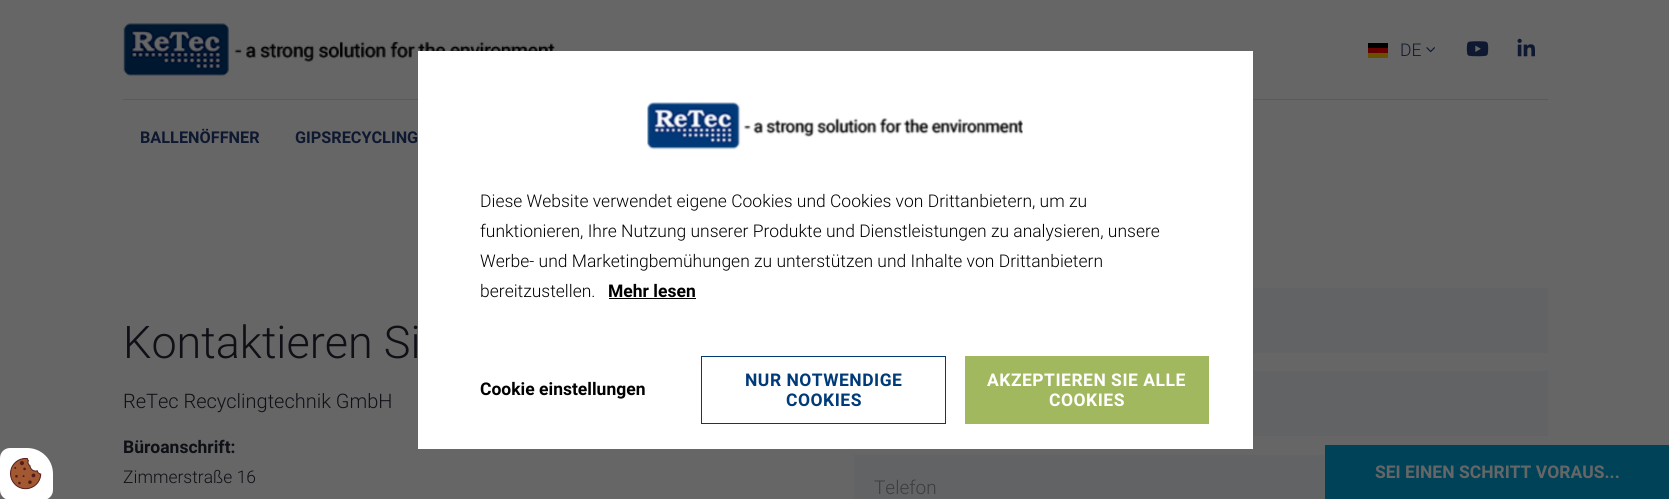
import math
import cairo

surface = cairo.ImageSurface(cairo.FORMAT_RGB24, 1669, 499)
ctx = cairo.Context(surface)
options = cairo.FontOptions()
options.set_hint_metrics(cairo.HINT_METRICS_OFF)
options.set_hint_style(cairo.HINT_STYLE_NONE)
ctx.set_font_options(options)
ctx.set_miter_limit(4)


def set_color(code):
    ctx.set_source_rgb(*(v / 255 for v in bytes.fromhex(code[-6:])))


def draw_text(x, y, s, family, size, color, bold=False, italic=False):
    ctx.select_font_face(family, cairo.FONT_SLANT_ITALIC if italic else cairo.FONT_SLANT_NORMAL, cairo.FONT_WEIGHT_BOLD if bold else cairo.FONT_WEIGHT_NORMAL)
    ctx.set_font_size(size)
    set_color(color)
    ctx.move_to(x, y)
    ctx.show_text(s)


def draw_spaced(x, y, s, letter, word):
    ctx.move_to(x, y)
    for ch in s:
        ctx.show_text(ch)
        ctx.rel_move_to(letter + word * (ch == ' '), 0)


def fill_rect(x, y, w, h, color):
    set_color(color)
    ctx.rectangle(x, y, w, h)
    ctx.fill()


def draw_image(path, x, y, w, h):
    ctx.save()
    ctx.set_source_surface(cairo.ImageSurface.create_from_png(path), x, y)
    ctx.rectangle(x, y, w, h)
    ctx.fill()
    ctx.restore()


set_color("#666666")
ctx.paint()
fill_rect(123, 99, 1425, 1, "#595a5c")
draw_image("assets/img1.png", 123, 23, 432, 53)
fill_rect(1368, 53, 20, 5, "#665200")
fill_rect(1368, 43, 20, 5, "#000000")
fill_rect(1368, 48, 20, 5, "#660000")
draw_text(1400, 56, "DE", "Roboto Light", 17.5, "#0e1830")
draw_image("assets/img2.png", 1426, 47, 9, 6)
draw_image("assets/img3.png", 1466, 41, 23, 16)
draw_image("assets/img4.png", 1517, 38, 18, 19)
draw_text(140, 143, "BALLENÖFFNER", "Roboto", 16.25, "#0e1830", bold=True)
draw_text(295, 143, "GIPSRECYCLING", "Roboto", 16.25, "#0e1830", bold=True)
draw_text(123, 358, "Kontaktieren Si", "Roboto Light", 45, "#0e1016")
draw_text(123, 408, "ReTec Recyclingtechnik GmbH", "Roboto Light", 20, "#0e1016")
draw_text(123, 453, "Büroanschrift:", "Roboto", 17.5, "#0e1016", bold=True)
draw_text(123, 483, "Zimmerstraße 16", "Roboto Light", 17.5, "#0e1016")
fill_rect(1253, 288, 295, 65, "#626364")
fill_rect(1253, 371, 295, 65, "#626364")
fill_rect(854, 455, 471, 44, "#626364")
draw_text(874, 494, "Telefon", "Roboto Light", 19, "#3d3d3d")
fill_rect(1325, 445, 344, 54, "#004359")
draw_text(1375, 478, "SEI EINEN SCHRITT VORAUS...", "Roboto", 17.5, "#666666", bold=True)
fill_rect(418, 51, 835, 398, "#ffffff")
draw_image("assets/img5.png", 647, 102, 376, 48)
draw_text(480, 207, "Diese Website verwendet eigene Cookies und Cookies von Drittanbietern, um zu", "Roboto Light", 17.5, "#000000")
draw_text(480, 237, "funktionieren, Ihre Nutzung unserer Produkte und Dienstleistungen zu analysieren, unsere", "Roboto Light", 17.5, "#000000")
draw_text(480, 267, "Werbe- und Marketingbemühungen zu unterstützen und Inhalte von Drittanbietern", "Roboto Light", 17.5, "#000000")
draw_text(480, 297, "bereitzustellen.", "Roboto Light", 17.5, "#000000")
draw_text(608, 297, "Mehr lesen", "Roboto", 17.5, "#000000", bold=True)
fill_rect(609, 298, 87, 1, "#000000")
draw_text(480, 395, "Cookie einstellungen", "Roboto", 17.5, "#000000", bold=True)
ctx.rectangle(701.5, 356.5, 244, 67)
set_color("#003a79")
ctx.set_line_width(1)
ctx.stroke()
draw_spaced(745, 386, "NUR NOTWENDIGE", 0.5, 0)
draw_spaced(786, 406, "COOKIES", 0.5, 0)
fill_rect(965, 356, 244, 68, "#a2b85f")
set_color("#ffffff")
draw_spaced(987, 386, "AKZEPTIEREN SIE ALLE", 0.5, 0)
draw_spaced(1049, 406, "COOKIES", 0.5, 0)
ctx.new_path()
ctx.move_to(10, 448)
ctx.line_to(27, 448)
ctx.curve_to(41.5, 448, 53, 459.5, 53, 474)
ctx.line_to(53, 490)
ctx.curve_to(53, 495.5, 48.5, 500, 43, 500)
ctx.line_to(10, 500)
ctx.curve_to(4.5, 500, 0, 495.5, 0, 490)
ctx.line_to(0, 458)
ctx.curve_to(0, 452.5, 4.5, 448, 10, 448)
ctx.close_path()
ctx.fill()
draw_image("assets/img6.png", 10, 458, 32, 32)
surface.write_to_png("output.png")
